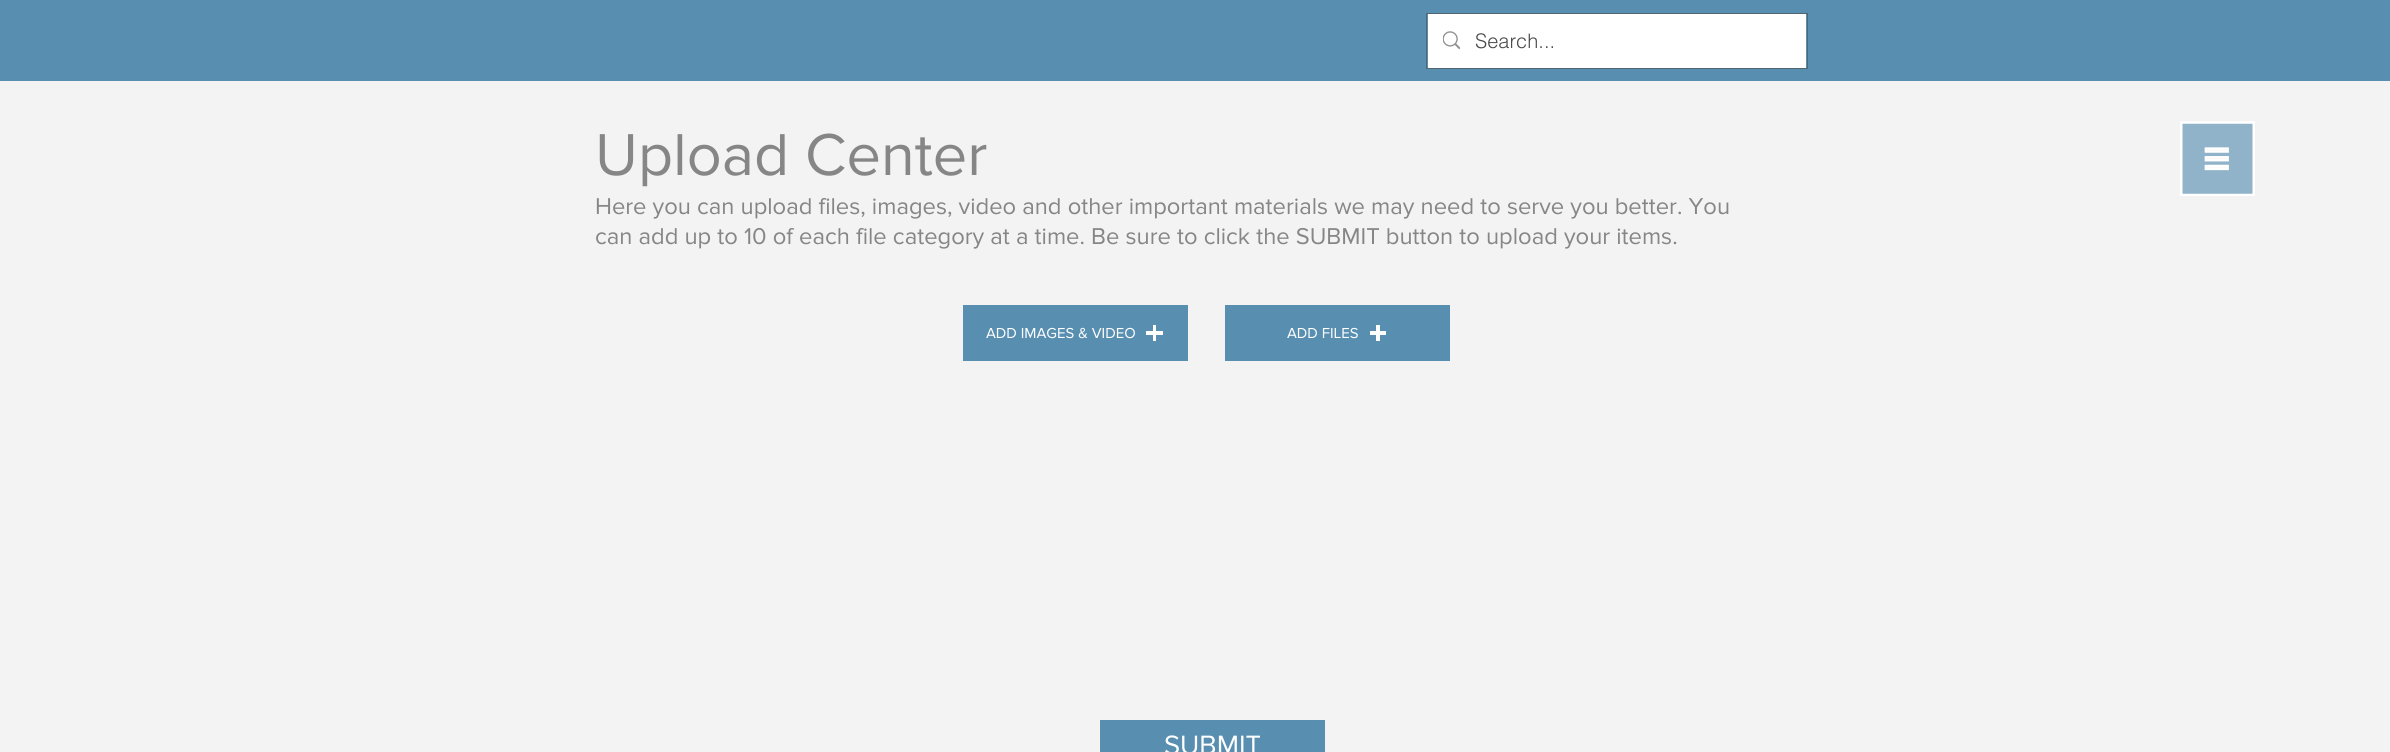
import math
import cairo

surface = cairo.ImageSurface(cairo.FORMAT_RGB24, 2390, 752)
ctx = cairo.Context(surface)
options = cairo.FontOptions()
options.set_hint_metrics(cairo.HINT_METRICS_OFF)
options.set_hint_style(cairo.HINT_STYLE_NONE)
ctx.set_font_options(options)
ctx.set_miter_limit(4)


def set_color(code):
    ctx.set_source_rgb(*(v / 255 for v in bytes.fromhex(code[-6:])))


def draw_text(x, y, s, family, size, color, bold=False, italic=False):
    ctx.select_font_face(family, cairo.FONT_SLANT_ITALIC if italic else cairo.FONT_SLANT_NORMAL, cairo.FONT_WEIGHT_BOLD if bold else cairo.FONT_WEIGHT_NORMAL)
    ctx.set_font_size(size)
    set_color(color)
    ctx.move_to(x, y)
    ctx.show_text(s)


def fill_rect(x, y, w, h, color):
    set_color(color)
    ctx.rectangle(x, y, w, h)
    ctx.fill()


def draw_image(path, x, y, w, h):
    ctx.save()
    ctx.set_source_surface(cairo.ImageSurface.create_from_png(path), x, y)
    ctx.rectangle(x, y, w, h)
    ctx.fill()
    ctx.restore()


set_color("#f3f3f3")
ctx.paint()
fill_rect(0, 0, 2390, 81, "#588fb1")
ctx.rectangle(1426.5, 13.5, 381, 55)
set_color("#506673")
ctx.set_line_width(1)
ctx.stroke()
fill_rect(1428, 14, 378, 54, "#ffffff")
draw_image("assets/img1.png", 1443, 31, 17, 19)
draw_text(1475, 48, "Search...", "helvetica Light", 20, "#4a4a4a")
draw_text(595, 175, "Upload Center", "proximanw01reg", 61.25, "#868686")
draw_text(595, 214, "Here you can upload files, images, video and other important materials we may need to serve you better. You", "proximanw01reg", 23.75, "#868686")
draw_text(595, 244, "can add up to 10 of each file category at a time. Be sure to click the SUBMIT button to upload your items.", "proximanw01reg", 23.75, "#868686")
fill_rect(963, 305, 225, 56, "#588fb1")
draw_text(986, 338, "ADD IMAGES & VIDEO", "proximanw01reg", 15, "#ffffff")
fill_rect(1153, 325, 3, 16, "#ffffff")
fill_rect(1146, 331, 17, 4, "#ffffff")
fill_rect(1225, 305, 225, 56, "#588fb1")
draw_text(1287, 338, "ADD FILES", "proximanw01reg", 15, "#ffffff")
fill_rect(1376, 325, 4, 16, "#ffffff")
fill_rect(1370, 331, 16, 4, "#ffffff")
fill_rect(1100, 720, 225, 32, "#588fb1")
draw_text(1164, 754, "SUBMIT", "proximanw01reg", 27.5, "#ffffff")
draw_image("assets/img2.png", 2180, 121, 75, 75)
surface.write_to_png("output.png")
